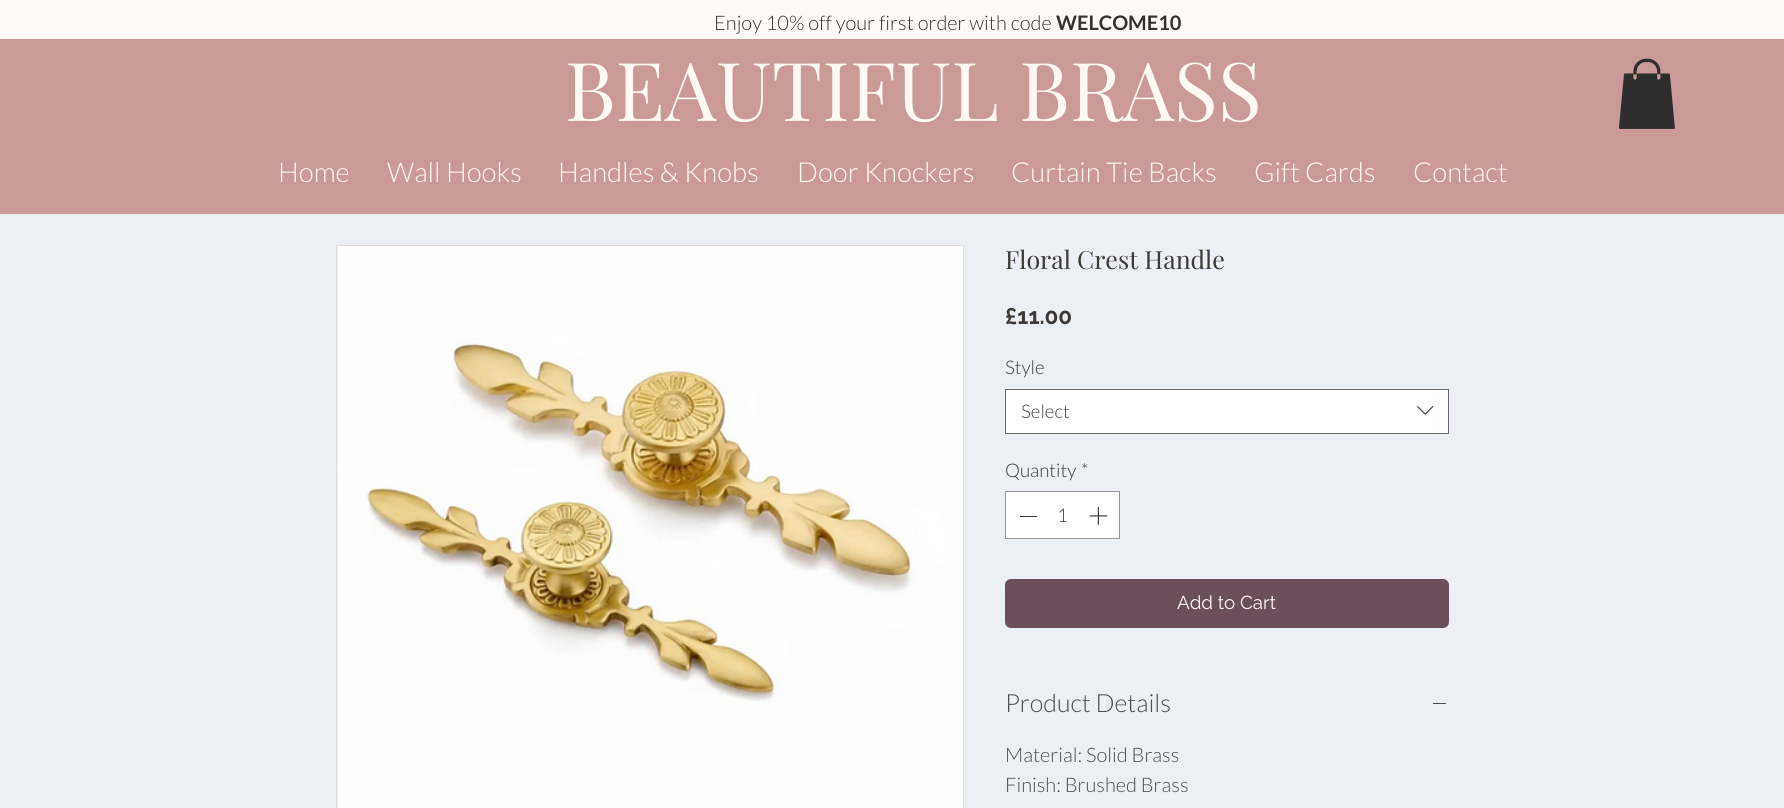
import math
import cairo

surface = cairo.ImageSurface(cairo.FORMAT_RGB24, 1784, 808)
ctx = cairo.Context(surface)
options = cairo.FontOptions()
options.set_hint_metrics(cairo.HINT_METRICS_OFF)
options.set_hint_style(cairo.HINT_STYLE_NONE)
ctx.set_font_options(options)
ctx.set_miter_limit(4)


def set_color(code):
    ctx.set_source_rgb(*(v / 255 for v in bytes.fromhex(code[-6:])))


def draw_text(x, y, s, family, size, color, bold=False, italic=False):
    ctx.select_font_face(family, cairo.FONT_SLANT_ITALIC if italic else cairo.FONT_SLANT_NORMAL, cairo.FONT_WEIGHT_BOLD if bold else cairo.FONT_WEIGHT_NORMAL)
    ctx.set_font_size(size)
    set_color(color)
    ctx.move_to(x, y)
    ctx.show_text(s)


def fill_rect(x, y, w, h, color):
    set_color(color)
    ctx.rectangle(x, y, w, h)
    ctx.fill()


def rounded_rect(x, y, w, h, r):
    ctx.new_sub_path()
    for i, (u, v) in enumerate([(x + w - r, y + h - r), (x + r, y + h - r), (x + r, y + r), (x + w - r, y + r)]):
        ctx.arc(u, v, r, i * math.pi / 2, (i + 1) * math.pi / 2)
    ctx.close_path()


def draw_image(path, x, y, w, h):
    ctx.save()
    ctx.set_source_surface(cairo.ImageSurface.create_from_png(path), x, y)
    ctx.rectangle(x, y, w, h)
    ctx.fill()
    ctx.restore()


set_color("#eceff3")
ctx.paint()
fill_rect(0, 0, 1784, 39, "#fffaf6")
draw_text(714, 30, "Enjoy 10% off your first order with code", "Lato Light", 20, "#333333")
draw_text(1056, 30, "WELCOME10", "Lato", 20, "#333333", bold=True)
fill_rect(0, 39, 1784, 175, "#cc9999")
draw_text(565, 121, "BEAUTIFUL BRASS", "Playfair Display", 81.25, "#fff9f4")
draw_image("assets/img1.png", 1619, 58, 56, 71)
draw_text(278, 182, "Home", "Lato Light", 27.5, "#fff9f4")
draw_text(387, 182, "Wall Hooks", "Lato Light", 27.5, "#fff9f4")
draw_text(558, 182, "Handles & Knobs", "Lato Light", 27.5, "#fff9f4")
draw_text(797, 182, "Door Knockers", "Lato Light", 27.5, "#fff9f4")
draw_text(1011, 182, "Curtain Tie Backs", "Lato Light", 27.5, "#fff9f4")
draw_text(1254, 182, "Gift Cards", "Lato Light", 27.5, "#fff9f4")
draw_text(1413, 182, "Contact", "Lato Light", 27.5, "#fff9f4")
ctx.rectangle(336.5, 245.5, 627, 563)
set_color("#e3ddd6")
ctx.set_line_width(1)
ctx.stroke()
draw_image("assets/img2.png", 338, 246, 625, 562)
draw_text(1005, 269, "Floral Crest Handle", "Playfair Display", 25, "#3e3a37")
draw_text(1005, 324, "£11.00", "Raleway", 22.5, "#3e3a37", bold=True)
draw_text(1005, 374, "Style", "Lato Light", 18.75, "#3e3a37")
set_color("#ffffff")
ctx.rectangle(1005.5, 389.5, 443, 44)
ctx.fill_preserve()
set_color("#666666")
ctx.stroke()
draw_text(1021, 418, "Select", "Lato Light", 18.75, "#444444")
draw_image("assets/img3.png", 1417, 405, 17, 10)
draw_text(1005, 477, "Quantity", "Lato Light", 18.75, "#3e3a37")
draw_text(1081, 477, "*", "Lato Light", 18.75, "#3e3a37")
set_color("#ffffff")
ctx.rectangle(1005.5, 491.5, 114, 47)
ctx.fill_preserve()
set_color("#959494")
ctx.stroke()
fill_rect(1020, 516, 17, 1, "#3e3a37")
draw_text(1057, 522, "1", "Lato Light", 18.75, "#3e3a37")
draw_image("assets/img4.png", 1089, 507, 19, 18)
set_color("#6b4f5b")
rounded_rect(1005, 579, 444, 49, 6)
ctx.fill()
draw_text(1177, 609, "Add to Cart", "Raleway", 18.75, "#fff9f4")
draw_text(1005, 712, "Product Details", "Lato Light", 25, "#4f4c4c")
fill_rect(1433, 703, 13, 1, "#4f4c4c")
draw_text(1005, 762, "Material: Solid Brass", "Lato Light", 20, "#4f4c4c")
draw_text(1005, 792, "Finish: Brushed Brass", "Lato Light", 20, "#4f4c4c")
surface.write_to_png("output.png")
